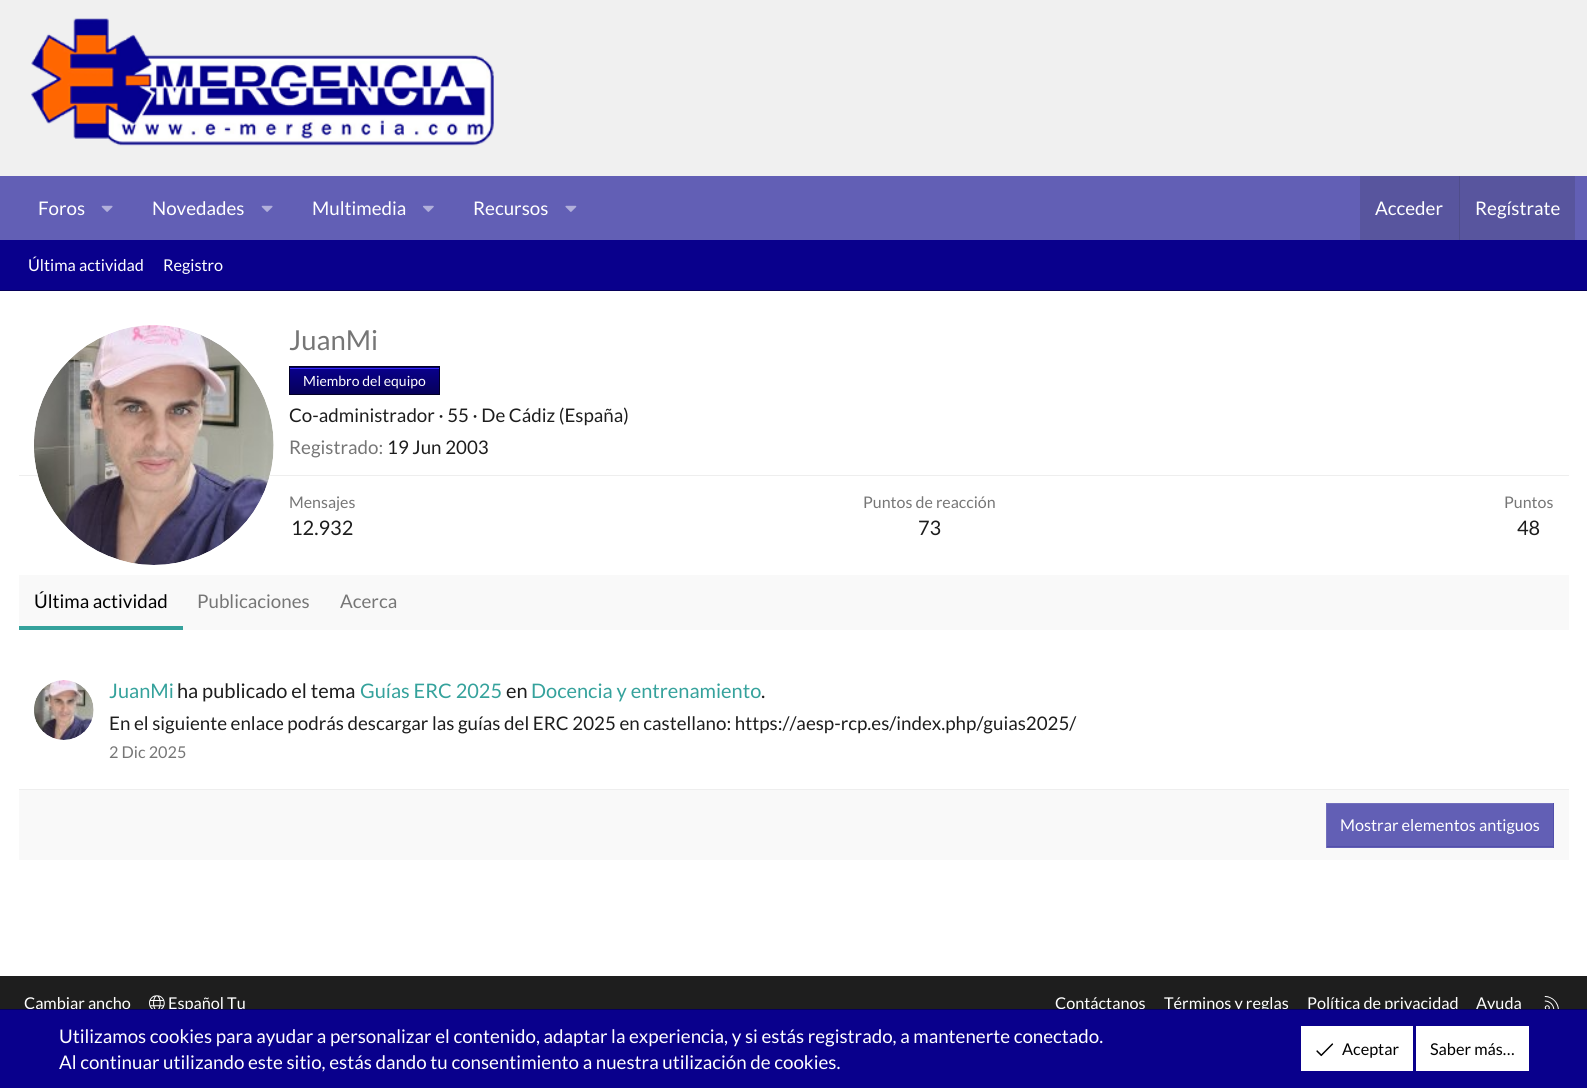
import math
import cairo

surface = cairo.ImageSurface(cairo.FORMAT_RGB24, 1587, 1088)
ctx = cairo.Context(surface)
options = cairo.FontOptions()
options.set_hint_metrics(cairo.HINT_METRICS_OFF)
options.set_hint_style(cairo.HINT_STYLE_NONE)
ctx.set_font_options(options)
ctx.set_miter_limit(4)


def set_color(code):
    ctx.set_source_rgb(*(v / 255 for v in bytes.fromhex(code[-6:])))


def draw_text(x, y, s, family, size, color, bold=False, italic=False):
    ctx.select_font_face(family, cairo.FONT_SLANT_ITALIC if italic else cairo.FONT_SLANT_NORMAL, cairo.FONT_WEIGHT_BOLD if bold else cairo.FONT_WEIGHT_NORMAL)
    ctx.set_font_size(size)
    set_color(color)
    ctx.move_to(x, y)
    ctx.show_text(s)


def fill_rect(x, y, w, h, color):
    set_color(color)
    ctx.rectangle(x, y, w, h)
    ctx.fill()


def draw_image(path, x, y, w, h):
    ctx.save()
    ctx.set_source_surface(cairo.ImageSurface.create_from_png(path), x, y)
    ctx.rectangle(x, y, w, h)
    ctx.fill()
    ctx.restore()


set_color("#f0f0f0")
ctx.paint()
draw_image("assets/img1.png", 31, 18, 463, 128)
fill_rect(0, 176, 1587, 64, "#625fb5")
draw_text(38, 215, "Foros", "Lato", 18.75, "#ffffff")
draw_image("assets/img2.png", 101, 205, 12, 7)
draw_text(152, 215, "Novedades", "Lato", 18.75, "#ffffff")
draw_image("assets/img2.png", 261, 205, 12, 7)
draw_text(312, 215, "Multimedia", "Lato", 18.75, "#ffffff")
draw_image("assets/img3.png", 423, 205, 11, 7)
draw_text(473, 215, "Recursos", "Lato", 18.75, "#ffffff")
draw_image("assets/img4.png", 565, 205, 12, 7)
fill_rect(1360, 176, 215, 64, "#58559e")
draw_text(1375, 215, "Acceder", "Lato", 18.75, "#ffffff")
fill_rect(1459, 176, 1, 64, "#4f4d8b")
draw_text(1475, 215, "Regístrate", "Lato", 18.75, "#ffffff")
fill_rect(0, 240, 1587, 50, "#09008c")
fill_rect(0, 290, 1587, 1, "#060059")
draw_text(28, 271, "Última actividad", "Lato", 16.25, "#ffffff")
draw_text(163, 271, "Registro", "Lato", 16.25, "#ffffff")
fill_rect(0, 291, 1587, 685, "#ffffff")
fill_rect(19, 475, 1550, 1, "#eeeeee")
set_color("#ffffff")
ctx.new_path()
ctx.arc(154, 445, 120, 0, 2 * math.pi)
ctx.fill()
draw_image("assets/img5.png", 34, 325, 240, 240)
draw_text(289, 350, "JuanMi", "Lato", 27.5, "#767676")
gradient = cairo.LinearGradient(364, 341, 364, 368)
gradient.add_color_stop_rgba(0, 0.035, 0, 0.549, 1)
gradient.add_color_stop_rgba(1, 0.024, 0, 0.349, 1)
ctx.set_source(gradient)
ctx.rectangle(289, 367, 151, 1)
ctx.fill()
gradient = cairo.LinearGradient(364, 368, 364, 394)
gradient.add_color_stop_rgba(0, 0.035, 0, 0.549, 1)
gradient.add_color_stop_rgba(1, 0.024, 0, 0.349, 1)
ctx.set_source(gradient)
ctx.rectangle(290, 369, 149, 25)
ctx.fill()
fill_rect(290, 368, 149, 1, "#3426ff")
ctx.rectangle(289.5, 366.5, 150, 28)
set_color("#020026")
ctx.set_line_width(1)
ctx.stroke()
draw_text(303, 386, "Miembro del equipo", "Lato", 14, "#ffffff")
draw_text(289, 422, "Co-administrador · 55 · De Cádiz (España)", "Lato", 18.75, "#1d1d1d")
draw_text(289, 454, "Registrado:", "Lato", 18.75, "#767676")
draw_text(387, 454, "19 Jun 2003", "Lato", 18.75, "#1d1d1d")
draw_text(289, 508, "Mensajes", "Lato", 16, "#767676")
draw_text(291, 535, "12.932", "Lato", 20, "#1d1d1d")
draw_text(863, 508, "Puntos de reacción", "Lato", 16, "#767676")
draw_text(918, 535, "73", "Lato", 20, "#1d1d1d")
draw_text(1504, 508, "Puntos", "Lato", 16, "#767676")
draw_text(1517, 535, "48", "Lato", 20, "#1d1d1d")
fill_rect(19, 575, 1550, 55, "#f9f9f9")
fill_rect(19, 626, 164, 4, "#35a29c")
draw_text(34, 608, "Última actividad", "Lato", 18.75, "#000000")
draw_text(197, 608, "Publicaciones", "Lato", 18.75, "#767676")
draw_text(340, 608, "Acerca", "Lato", 18.75, "#767676")
draw_image("assets/img6.png", 34, 680, 60, 60)
draw_text(109, 698, "JuanMi", "Lato", 20, "#35a29c")
draw_text(177, 698, "ha publicado el tema", "Lato", 20, "#1d1d1d")
draw_text(360, 698, "Guías ERC 2025", "Lato", 20, "#35a29c")
draw_text(506, 698, "en", "Lato", 20, "#1d1d1d")
draw_text(531, 698, "Docencia y entrenamiento", "Lato", 20, "#35a29c")
draw_text(761, 698, ".", "Lato", 20, "#1d1d1d")
draw_text(109, 730, "En el siguiente enlace podrás descargar las guías del ERC 2025 en castellano: https://aesp-rcp.es/index.php/guias2025/", "Lato", 18.75, "#1d1d1d")
draw_text(109, 758, "2 Dic 2025", "Lato", 16.25, "#767676")
fill_rect(19, 790, 1550, 70, "#f9f9f9")
fill_rect(19, 789, 1550, 1, "#eeeeee")
fill_rect(1327, 804, 226, 44, "#625fb5")
fill_rect(1326, 803, 228, 1, "#7370bd")
fill_rect(1553, 803, 1, 45, "#524fab")
fill_rect(1326, 846, 228, 1, "#524fab")
fill_rect(1326, 803, 1, 45, "#7370bd")
draw_text(1340, 831, "Mostrar elementos antiguos", "Lato", 16.25, "#ffffff")
fill_rect(0, 976, 1587, 33, "#1e1e1e")
draw_text(24, 1009, "Cambiar ancho", "Lato", 16.25, "#ffffff")
draw_image("assets/img7.png", 149, 995, 16, 14)
draw_text(168, 1009, "Español Tu", "Lato", 16.25, "#ffffff")
draw_text(1055, 1009, "Contáctanos", "Lato", 16.25, "#ffffff")
draw_text(1164, 1009, "Términos y reglas", "Lato", 16.25, "#ffffff")
draw_text(1307, 1009, "Política de privacidad", "Lato", 16.25, "#ffffff")
draw_text(1476, 1009, "Ayuda", "Lato", 16.25, "#ffffff")
draw_image("assets/img8.png", 1544, 996, 15, 13)
fill_rect(0, 1010, 1587, 78, "#09008c")
fill_rect(0, 1009, 1587, 1, "#060059")
draw_text(59, 1043, "Utilizamos cookies para ayudar a personalizar el contenido, adaptar la experiencia, y si estás registrado, a mantenerte conectado.", "Lato", 18.75, "#ffffff")
draw_text(59, 1069, "Al continuar utilizando este sitio, estás dando tu consentimiento a nuestra utilización de cookies.", "Lato", 18.75, "#ffffff")
fill_rect(1301, 1026, 112, 45, "#ffffff")
draw_image("assets/img9.png", 1316, 1043, 18, 14)
draw_text(1342, 1055, "Aceptar", "Lato", 16.25, "#000000")
fill_rect(1416, 1026, 113, 45, "#ffffff")
draw_text(1430, 1055, "Saber más…", "Lato", 16.25, "#000000")
surface.write_to_png("output.png")
